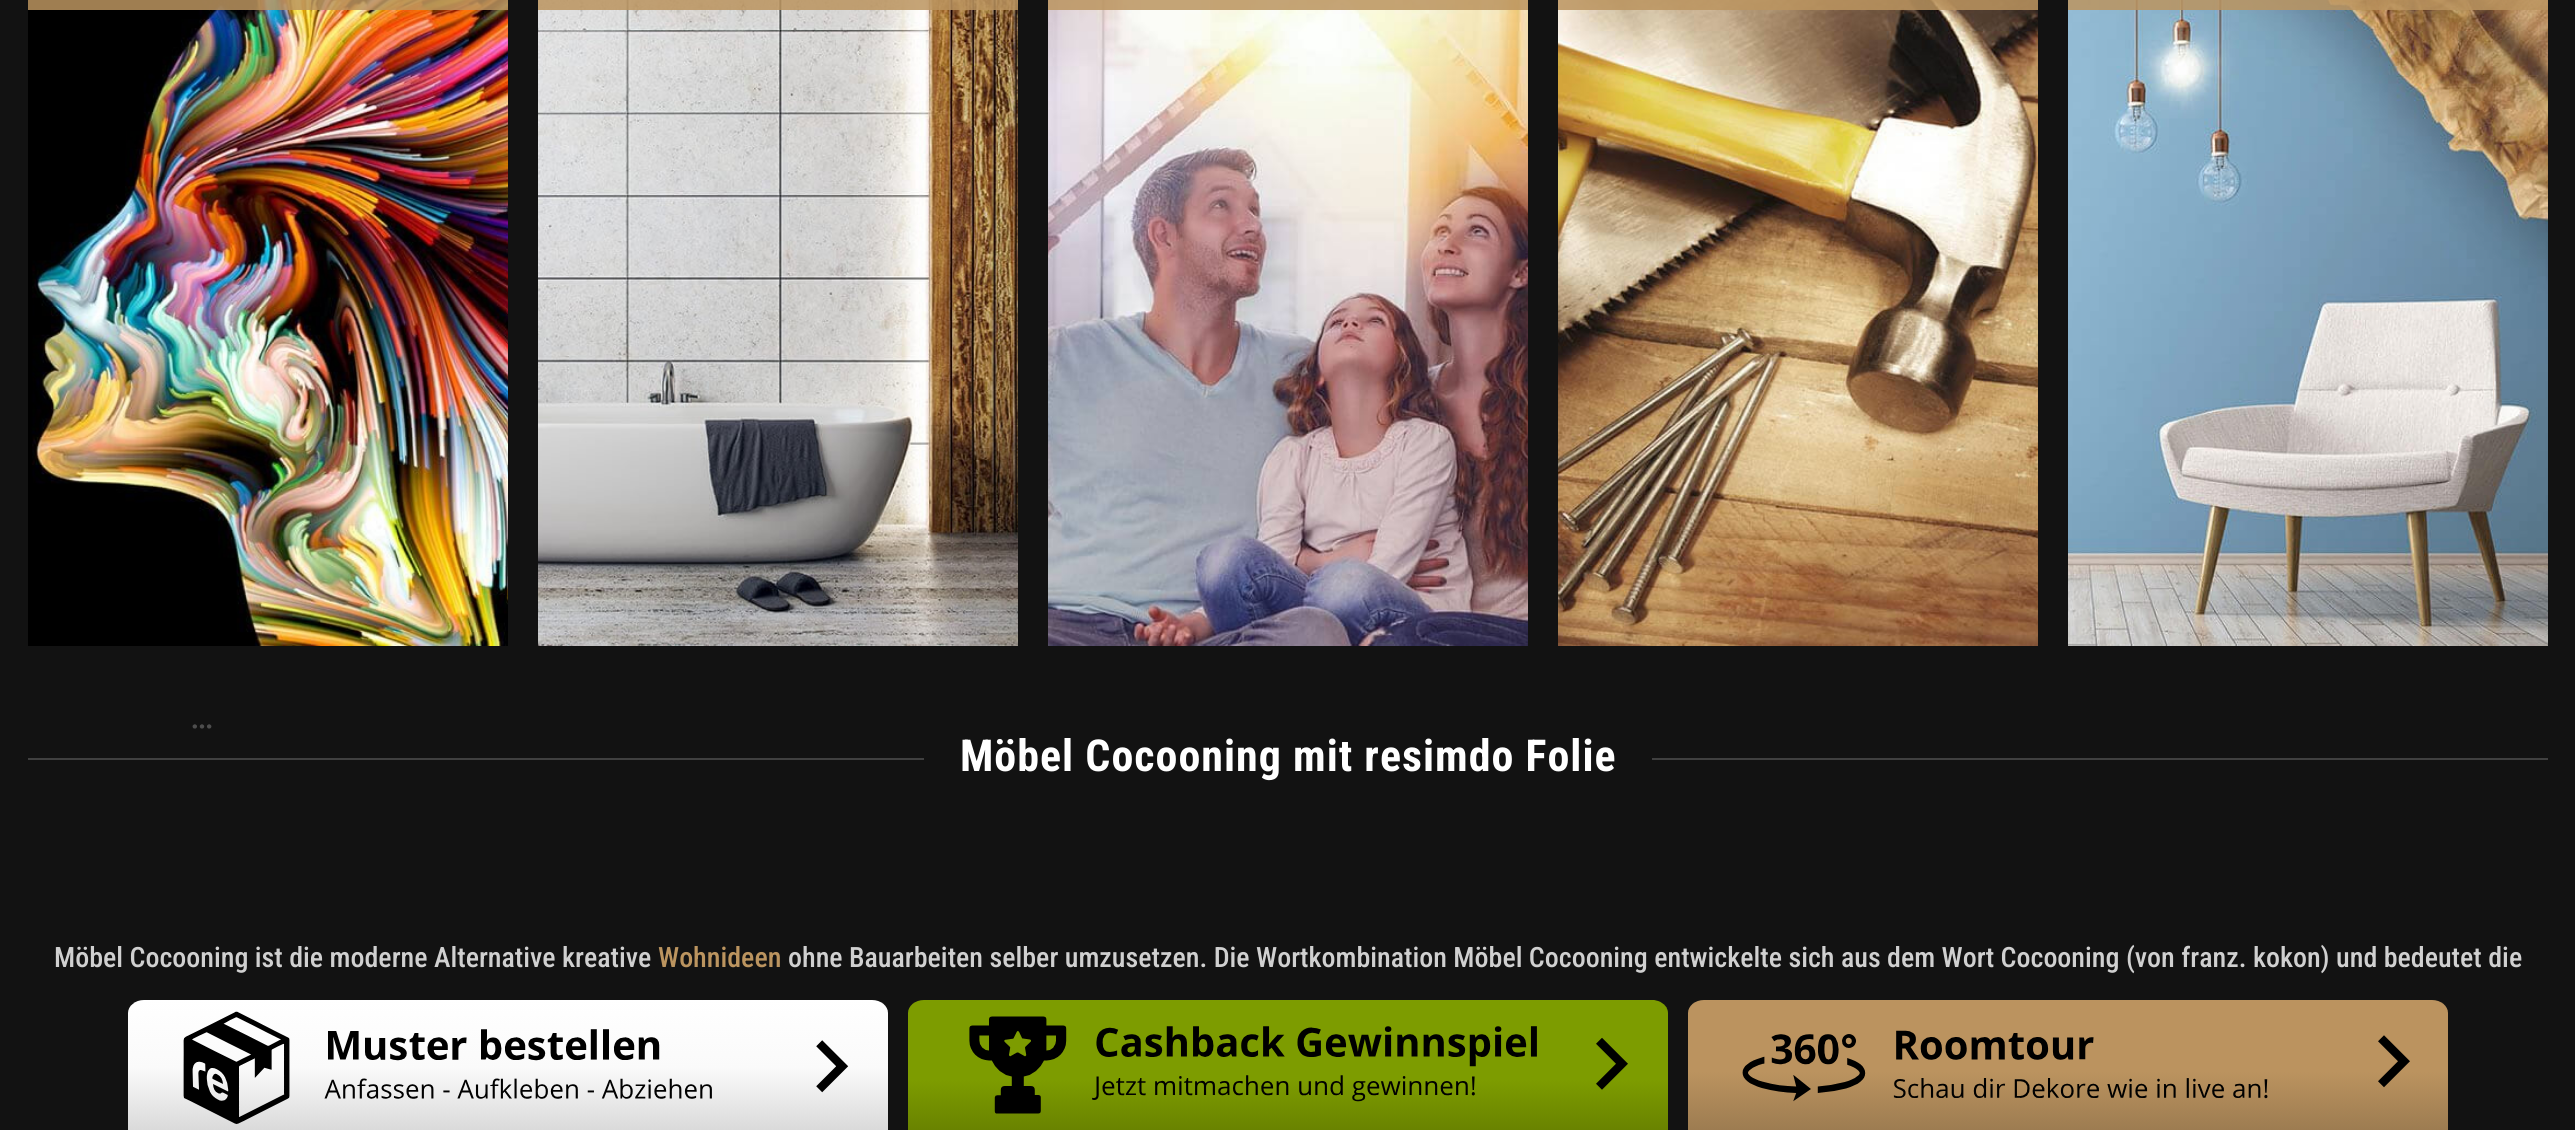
import math
import cairo

surface = cairo.ImageSurface(cairo.FORMAT_RGB24, 2575, 1130)
ctx = cairo.Context(surface)
options = cairo.FontOptions()
options.set_hint_metrics(cairo.HINT_METRICS_OFF)
options.set_hint_style(cairo.HINT_STYLE_NONE)
ctx.set_font_options(options)
ctx.set_miter_limit(4)


def set_color(code):
    ctx.set_source_rgb(*(v / 255 for v in bytes.fromhex(code[-6:])))


def draw_text(x, y, s, family, size, color, bold=False, italic=False):
    ctx.select_font_face(family, cairo.FONT_SLANT_ITALIC if italic else cairo.FONT_SLANT_NORMAL, cairo.FONT_WEIGHT_BOLD if bold else cairo.FONT_WEIGHT_NORMAL)
    ctx.set_font_size(size)
    set_color(color)
    ctx.move_to(x, y)
    ctx.show_text(s)


def draw_spaced(x, y, s, letter, word):
    ctx.move_to(x, y)
    for ch in s:
        ctx.show_text(ch)
        ctx.rel_move_to(letter + word * (ch == ' '), 0)


def fill_rect(x, y, w, h, color):
    set_color(color)
    ctx.rectangle(x, y, w, h)
    ctx.fill()


def draw_image(path, x, y, w, h):
    ctx.save()
    ctx.set_source_surface(cairo.ImageSurface.create_from_png(path), x, y)
    ctx.rectangle(x, y, w, h)
    ctx.fill()
    ctx.restore()


set_color("#121212")
ctx.paint()
draw_image("assets/img1.png", 192, 724, 20, 5)
draw_image("assets/img2.png", 28, 0, 480, 646)
ctx.set_source_rgba(0.733, 0.58, 0.373, 0.85)
ctx.rectangle(28, 0, 480, 10)
ctx.fill()
draw_image("assets/img3.png", 538, 0, 480, 646)
ctx.rectangle(538, 0, 480, 10)
ctx.fill()
draw_image("assets/img4.png", 1048, 0, 480, 646)
ctx.rectangle(1048, 0, 480, 10)
ctx.fill()
draw_image("assets/img5.png", 1558, 0, 480, 646)
ctx.rectangle(1558, 0, 480, 10)
ctx.fill()
draw_image("assets/img6.png", 2068, 0, 480, 646)
ctx.rectangle(2068, 0, 480, 10)
ctx.fill()
fill_rect(28, 758, 896, 2, "#404040")
ctx.select_font_face("Roboto Condensed", cairo.FONT_SLANT_NORMAL, cairo.FONT_WEIGHT_BOLD)
ctx.set_font_size(44)
set_color("#ffffff")
draw_spaced(960, 771, "Möbel Cocooning mit resimdo Folie", 1, 0)
fill_rect(1652, 758, 896, 2, "#404040")
draw_text(54, 967, "Möbel Cocooning ist die moderne Alternative kreative", "Roboto Condensed Medium", 28, "#d0d0d0")
draw_text(658, 967, "Wohnideen", "Roboto Condensed Medium", 28, "#bb945f")
draw_text(788, 967, "ohne Bauarbeiten selber umzusetzen. Die Wortkombination Möbel Cocooning entwickelte sich aus dem Wort Cocooning (von franz. kokon) und bedeutet die", "Roboto Condensed Medium", 28, "#d0d0d0")
draw_image("assets/img7.png", 128, 1000, 760, 130)
draw_image("assets/img8.png", 908, 1000, 760, 130)
draw_image("assets/img9.png", 1688, 1000, 760, 130)
surface.write_to_png("output.png")
